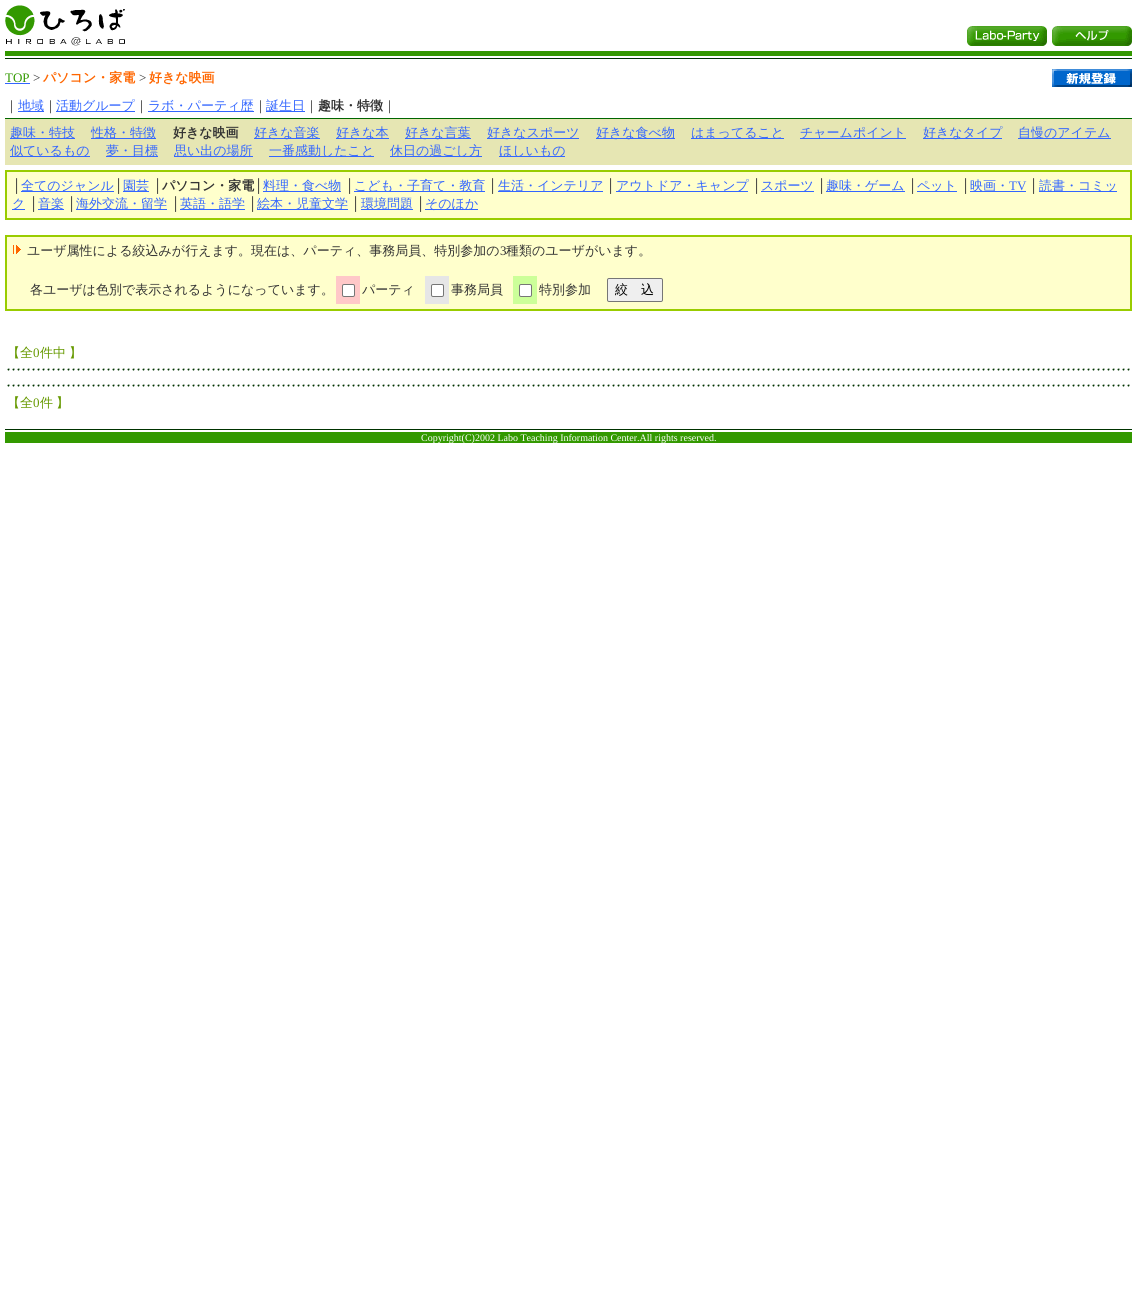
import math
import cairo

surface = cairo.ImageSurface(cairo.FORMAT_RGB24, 1137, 1305)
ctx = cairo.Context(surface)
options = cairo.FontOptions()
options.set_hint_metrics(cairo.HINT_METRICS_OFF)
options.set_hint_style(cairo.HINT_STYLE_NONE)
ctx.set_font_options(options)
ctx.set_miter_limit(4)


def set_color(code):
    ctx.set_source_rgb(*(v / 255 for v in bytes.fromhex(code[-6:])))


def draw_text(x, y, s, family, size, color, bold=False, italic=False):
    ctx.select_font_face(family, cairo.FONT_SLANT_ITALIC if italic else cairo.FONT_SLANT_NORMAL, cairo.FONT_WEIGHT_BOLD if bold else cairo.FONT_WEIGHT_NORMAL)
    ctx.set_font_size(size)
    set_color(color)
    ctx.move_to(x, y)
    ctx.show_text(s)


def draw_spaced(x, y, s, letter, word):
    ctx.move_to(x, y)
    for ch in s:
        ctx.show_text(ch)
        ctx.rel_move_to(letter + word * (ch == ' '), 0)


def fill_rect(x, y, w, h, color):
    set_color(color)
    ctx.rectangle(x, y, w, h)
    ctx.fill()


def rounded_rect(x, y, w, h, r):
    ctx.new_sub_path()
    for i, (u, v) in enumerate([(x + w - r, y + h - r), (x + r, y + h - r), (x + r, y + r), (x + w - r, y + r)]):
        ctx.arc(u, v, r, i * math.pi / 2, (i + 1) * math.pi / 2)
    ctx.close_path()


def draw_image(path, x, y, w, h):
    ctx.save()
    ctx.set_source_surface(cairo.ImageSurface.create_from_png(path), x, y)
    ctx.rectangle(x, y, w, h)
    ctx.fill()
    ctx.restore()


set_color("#ffffff")
ctx.paint()
draw_image("assets/img1.png", 5, 5, 120, 41)
draw_image("assets/img2.png", 967, 26, 80, 20)
draw_image("assets/img3.png", 1052, 26, 80, 20)
fill_rect(5, 51, 1127, 5, "#339900")
fill_rect(5, 58, 1127, 1, "#003300")
draw_text(5, 82, "TOP", "Liberation Serif", 13, "#339900")
fill_rect(5, 83, 25, 1, "#3366ff")
draw_text(33, 82, ">", "Liberation Serif", 13, "#333333")
draw_text(43, 82, "パソコン・家電", "WenQuanYi Zen Hei", 13, "#ff6600", bold=True)
draw_text(139, 82, ">", "Liberation Serif", 13, "#333333")
draw_text(149, 82, "好きな映画", "WenQuanYi Zen Hei", 13, "#ff6600", bold=True)
draw_image("assets/img4.png", 1052, 69, 80, 18)
draw_text(5, 110, "｜", "WenQuanYi Zen Hei Medium", 13, "#333333")
fill_rect(18, 111, 26, 1, "#3366ff")
draw_text(18, 110, "地域", "WenQuanYi Zen Hei Medium", 13, "#3366ff")
draw_text(44, 110, "｜", "WenQuanYi Zen Hei Medium", 13, "#333333")
fill_rect(56, 111, 79, 1, "#3366ff")
draw_text(56, 110, "活動グループ", "WenQuanYi Zen Hei Medium", 13, "#3366ff")
draw_text(135, 110, "｜", "WenQuanYi Zen Hei Medium", 13, "#333333")
fill_rect(148, 111, 106, 1, "#3366ff")
draw_text(148, 110, "ラボ・パーティ歴", "WenQuanYi Zen Hei Medium", 13, "#3366ff")
draw_text(254, 110, "｜", "WenQuanYi Zen Hei Medium", 13, "#333333")
fill_rect(266, 111, 39, 1, "#3366ff")
draw_text(266, 110, "誕生日", "WenQuanYi Zen Hei Medium", 13, "#3366ff")
draw_text(305, 110, "｜", "WenQuanYi Zen Hei Medium", 13, "#333333")
draw_text(318, 110, "趣味・特徴", "WenQuanYi Zen Hei", 13, "#333333", bold=True)
draw_text(383, 110, "｜", "WenQuanYi Zen Hei Medium", 13, "#333333")
fill_rect(5, 118, 1127, 1, "#006600")
fill_rect(5, 119, 1127, 46, "#e6e6b3")
fill_rect(10, 138, 65, 1, "#3366ff")
draw_text(10, 137, "趣味・特技", "WenQuanYi Zen Hei Medium", 13, "#3366ff")
fill_rect(91, 138, 65, 1, "#3366ff")
draw_text(91, 137, "性格・特徴", "WenQuanYi Zen Hei Medium", 13, "#3366ff")
draw_text(173, 137, "好きな映画", "WenQuanYi Zen Hei", 13, "#333333", bold=True)
fill_rect(254, 138, 66, 1, "#3366ff")
draw_text(254, 137, "好きな音楽", "WenQuanYi Zen Hei Medium", 13, "#3366ff")
fill_rect(336, 138, 53, 1, "#3366ff")
draw_text(336, 137, "好きな本", "WenQuanYi Zen Hei Medium", 13, "#3366ff")
fill_rect(405, 138, 66, 1, "#3366ff")
draw_text(405, 137, "好きな言葉", "WenQuanYi Zen Hei Medium", 13, "#3366ff")
fill_rect(487, 138, 92, 1, "#3366ff")
draw_text(487, 137, "好きなスポーツ", "WenQuanYi Zen Hei Medium", 13, "#3366ff")
fill_rect(596, 138, 79, 1, "#3366ff")
draw_text(596, 137, "好きな食べ物", "WenQuanYi Zen Hei Medium", 13, "#3366ff")
fill_rect(691, 138, 93, 1, "#3366ff")
draw_text(691, 137, "はまってること", "WenQuanYi Zen Hei Medium", 13, "#3366ff")
fill_rect(800, 138, 106, 1, "#3366ff")
draw_text(800, 137, "チャームポイント", "WenQuanYi Zen Hei Medium", 13, "#3366ff")
fill_rect(923, 138, 79, 1, "#3366ff")
draw_text(923, 137, "好きなタイプ", "WenQuanYi Zen Hei Medium", 13, "#3366ff")
fill_rect(1018, 138, 93, 1, "#3366ff")
draw_text(1018, 137, "自慢のアイテム", "WenQuanYi Zen Hei Medium", 13, "#3366ff")
fill_rect(10, 156, 80, 1, "#3366ff")
draw_text(10, 155, "似ているもの", "WenQuanYi Zen Hei Medium", 13, "#3366ff")
fill_rect(106, 156, 52, 1, "#3366ff")
draw_text(106, 155, "夢・目標", "WenQuanYi Zen Hei Medium", 13, "#3366ff")
fill_rect(174, 156, 79, 1, "#3366ff")
draw_text(174, 155, "思い出の場所", "WenQuanYi Zen Hei Medium", 13, "#3366ff")
fill_rect(269, 156, 105, 1, "#3366ff")
draw_text(269, 155, "一番感動したこと", "WenQuanYi Zen Hei Medium", 13, "#3366ff")
fill_rect(390, 156, 92, 1, "#3366ff")
draw_text(390, 155, "休日の過ごし方", "WenQuanYi Zen Hei Medium", 13, "#3366ff")
fill_rect(499, 156, 66, 1, "#3366ff")
draw_text(499, 155, "ほしいもの", "WenQuanYi Zen Hei Medium", 13, "#3366ff")
fill_rect(5, 170, 1127, 50, "#99cc00")
fill_rect(7, 172, 1123, 46, "#ffffcc")
draw_text(12, 190, "│", "Liberation Serif", 13, "#333333")
fill_rect(21, 191, 93, 1, "#3366ff")
draw_text(21, 190, "全てのジャンル", "WenQuanYi Zen Hei Medium", 13, "#3366ff")
draw_text(114, 190, "│", "Liberation Serif", 13, "#333333")
fill_rect(123, 191, 26, 1, "#3366ff")
draw_text(123, 190, "園芸", "WenQuanYi Zen Hei Medium", 13, "#3366ff")
draw_text(153, 190, "│", "Liberation Serif", 13, "#333333")
draw_text(162, 190, "パソコン・家電", "WenQuanYi Zen Hei", 13, "#333333", bold=True)
draw_text(254, 190, "│", "Liberation Serif", 13, "#333333")
fill_rect(263, 191, 78, 1, "#3366ff")
draw_text(263, 190, "料理・食べ物", "WenQuanYi Zen Hei Medium", 13, "#3366ff")
draw_text(345, 190, "│", "Liberation Serif", 13, "#333333")
fill_rect(354, 191, 131, 1, "#3366ff")
draw_text(354, 190, "こども・子育て・教育", "WenQuanYi Zen Hei Medium", 13, "#3366ff")
draw_text(488, 190, "│", "Liberation Serif", 13, "#333333")
fill_rect(498, 191, 105, 1, "#3366ff")
draw_text(498, 190, "生活・インテリア", "WenQuanYi Zen Hei Medium", 13, "#3366ff")
draw_text(606, 190, "│", "Liberation Serif", 13, "#333333")
fill_rect(616, 191, 132, 1, "#3366ff")
draw_text(616, 190, "アウトドア・キャンプ", "WenQuanYi Zen Hei Medium", 13, "#3366ff")
draw_text(752, 190, "│", "Liberation Serif", 13, "#333333")
fill_rect(761, 191, 53, 1, "#3366ff")
draw_text(761, 190, "スポーツ", "WenQuanYi Zen Hei Medium", 13, "#3366ff")
draw_text(817, 190, "│", "Liberation Serif", 13, "#333333")
fill_rect(826, 191, 79, 1, "#3366ff")
draw_text(826, 190, "趣味・ゲーム", "WenQuanYi Zen Hei Medium", 13, "#3366ff")
draw_text(908, 190, "│", "Liberation Serif", 13, "#333333")
fill_rect(917, 191, 40, 1, "#3366ff")
draw_text(917, 190, "ペット", "WenQuanYi Zen Hei Medium", 13, "#3366ff")
draw_text(961, 190, "│", "Liberation Serif", 13, "#333333")
fill_rect(970, 191, 56, 1, "#3366ff")
draw_text(970, 190, "映画・", "WenQuanYi Zen Hei Medium", 13, "#3366ff")
draw_text(1009, 190, "TV", "Liberation Serif", 13, "#3366ff")
draw_text(1029, 190, "│", "Liberation Serif", 13, "#333333")
fill_rect(1039, 191, 78, 1, "#3366ff")
draw_text(1039, 190, "読書・コミッ", "WenQuanYi Zen Hei Medium", 13, "#3366ff")
fill_rect(12, 209, 13, 1, "#3366ff")
draw_text(12, 208, "ク", "WenQuanYi Zen Hei Medium", 13, "#3366ff")
draw_text(29, 208, "│", "Liberation Serif", 13, "#333333")
fill_rect(38, 209, 26, 1, "#3366ff")
draw_text(38, 208, "音楽", "WenQuanYi Zen Hei Medium", 13, "#3366ff")
draw_text(67, 208, "│", "Liberation Serif", 13, "#333333")
fill_rect(76, 209, 91, 1, "#3366ff")
draw_text(76, 208, "海外交流・留学", "WenQuanYi Zen Hei Medium", 13, "#3366ff")
draw_text(171, 208, "│", "Liberation Serif", 13, "#333333")
fill_rect(180, 209, 65, 1, "#3366ff")
draw_text(180, 208, "英語・語学", "WenQuanYi Zen Hei Medium", 13, "#3366ff")
draw_text(248, 208, "│", "Liberation Serif", 13, "#333333")
fill_rect(257, 209, 91, 1, "#3366ff")
draw_text(257, 208, "絵本・児童文学", "WenQuanYi Zen Hei Medium", 13, "#3366ff")
draw_text(351, 208, "│", "Liberation Serif", 13, "#333333")
fill_rect(361, 209, 52, 1, "#3366ff")
draw_text(361, 208, "環境問題", "WenQuanYi Zen Hei Medium", 13, "#3366ff")
draw_text(416, 208, "│", "Liberation Serif", 13, "#333333")
fill_rect(425, 209, 53, 1, "#3366ff")
draw_text(425, 208, "そのほか", "WenQuanYi Zen Hei Medium", 13, "#3366ff")
fill_rect(5, 235, 1127, 76, "#99cc00")
fill_rect(7, 237, 1123, 72, "#ffffcc")
draw_image("assets/img5.png", 13, 245, 8, 9)
draw_text(27, 255, "ユーザ属性による絞込みが行えます。現在は、パーティ、事務局員、特別参加の", "WenQuanYi Zen Hei Medium", 13, "#333333")
draw_text(500, 255, "3", "Liberation Serif", 13, "#333333")
draw_text(506, 255, "種類のユーザがいます。", "WenQuanYi Zen Hei Medium", 13, "#333333")
draw_text(30, 294, "各ユーザは色別で表示されるようになっています。", "WenQuanYi Zen Hei Medium", 13, "#333333")
fill_rect(336, 276, 24, 28, "#ffc8c8")
set_color("#ffffff")
rounded_rect(342.5, 284.5, 12, 12, 1.5)
ctx.fill_preserve()
set_color("#767676")
ctx.set_line_width(1)
ctx.stroke()
draw_text(362, 294, "パーティ", "WenQuanYi Zen Hei Medium", 13, "#333333")
fill_rect(425, 276, 24, 28, "#e6e6e6")
set_color("#ffffff")
rounded_rect(431.5, 284.5, 12, 12, 1.5)
ctx.fill_preserve()
set_color("#767676")
ctx.stroke()
draw_text(451, 294, "事務局員", "WenQuanYi Zen Hei Medium", 13, "#333333")
fill_rect(513, 276, 24, 28, "#ccff99")
set_color("#ffffff")
rounded_rect(519.5, 284.5, 12, 12, 1.5)
ctx.fill_preserve()
set_color("#767676")
ctx.stroke()
draw_text(539, 294, "特別参加", "WenQuanYi Zen Hei Medium", 13, "#333333")
set_color("#efefef")
rounded_rect(607.5, 278.5, 55, 23, 1.5)
ctx.fill_preserve()
set_color("#767676")
ctx.stroke()
draw_text(615, 294, "絞　込", "WenQuanYi Zen Hei Medium", 13, "#000000")
draw_text(7, 357, "【全", "WenQuanYi Zen Hei Medium", 13, "#669900")
draw_text(33, 357, "0", "Liberation Serif", 13, "#669900")
ctx.select_font_face("WenQuanYi Zen Hei Medium")
draw_spaced(40, 357, "件中 】", 0, -1)
draw_image("assets/img6.png", 7, 368, 1123, 3)
draw_image("assets/img6.png", 7, 384, 1123, 3)
draw_text(7, 407, "【全", "WenQuanYi Zen Hei Medium", 13, "#669900")
draw_text(33, 407, "0", "Liberation Serif", 13, "#669900")
ctx.select_font_face("WenQuanYi Zen Hei Medium")
draw_spaced(40, 407, "件 】", 0, -1)
fill_rect(5, 429, 1127, 1, "#003300")
fill_rect(5, 432, 1127, 11, "#339900")
draw_text(421, 441, "Copyright(C)2002 Labo Teaching Information Center.All rights reserved.", "Liberation Serif", 10, "#ffffff")
surface.write_to_png("output.png")
